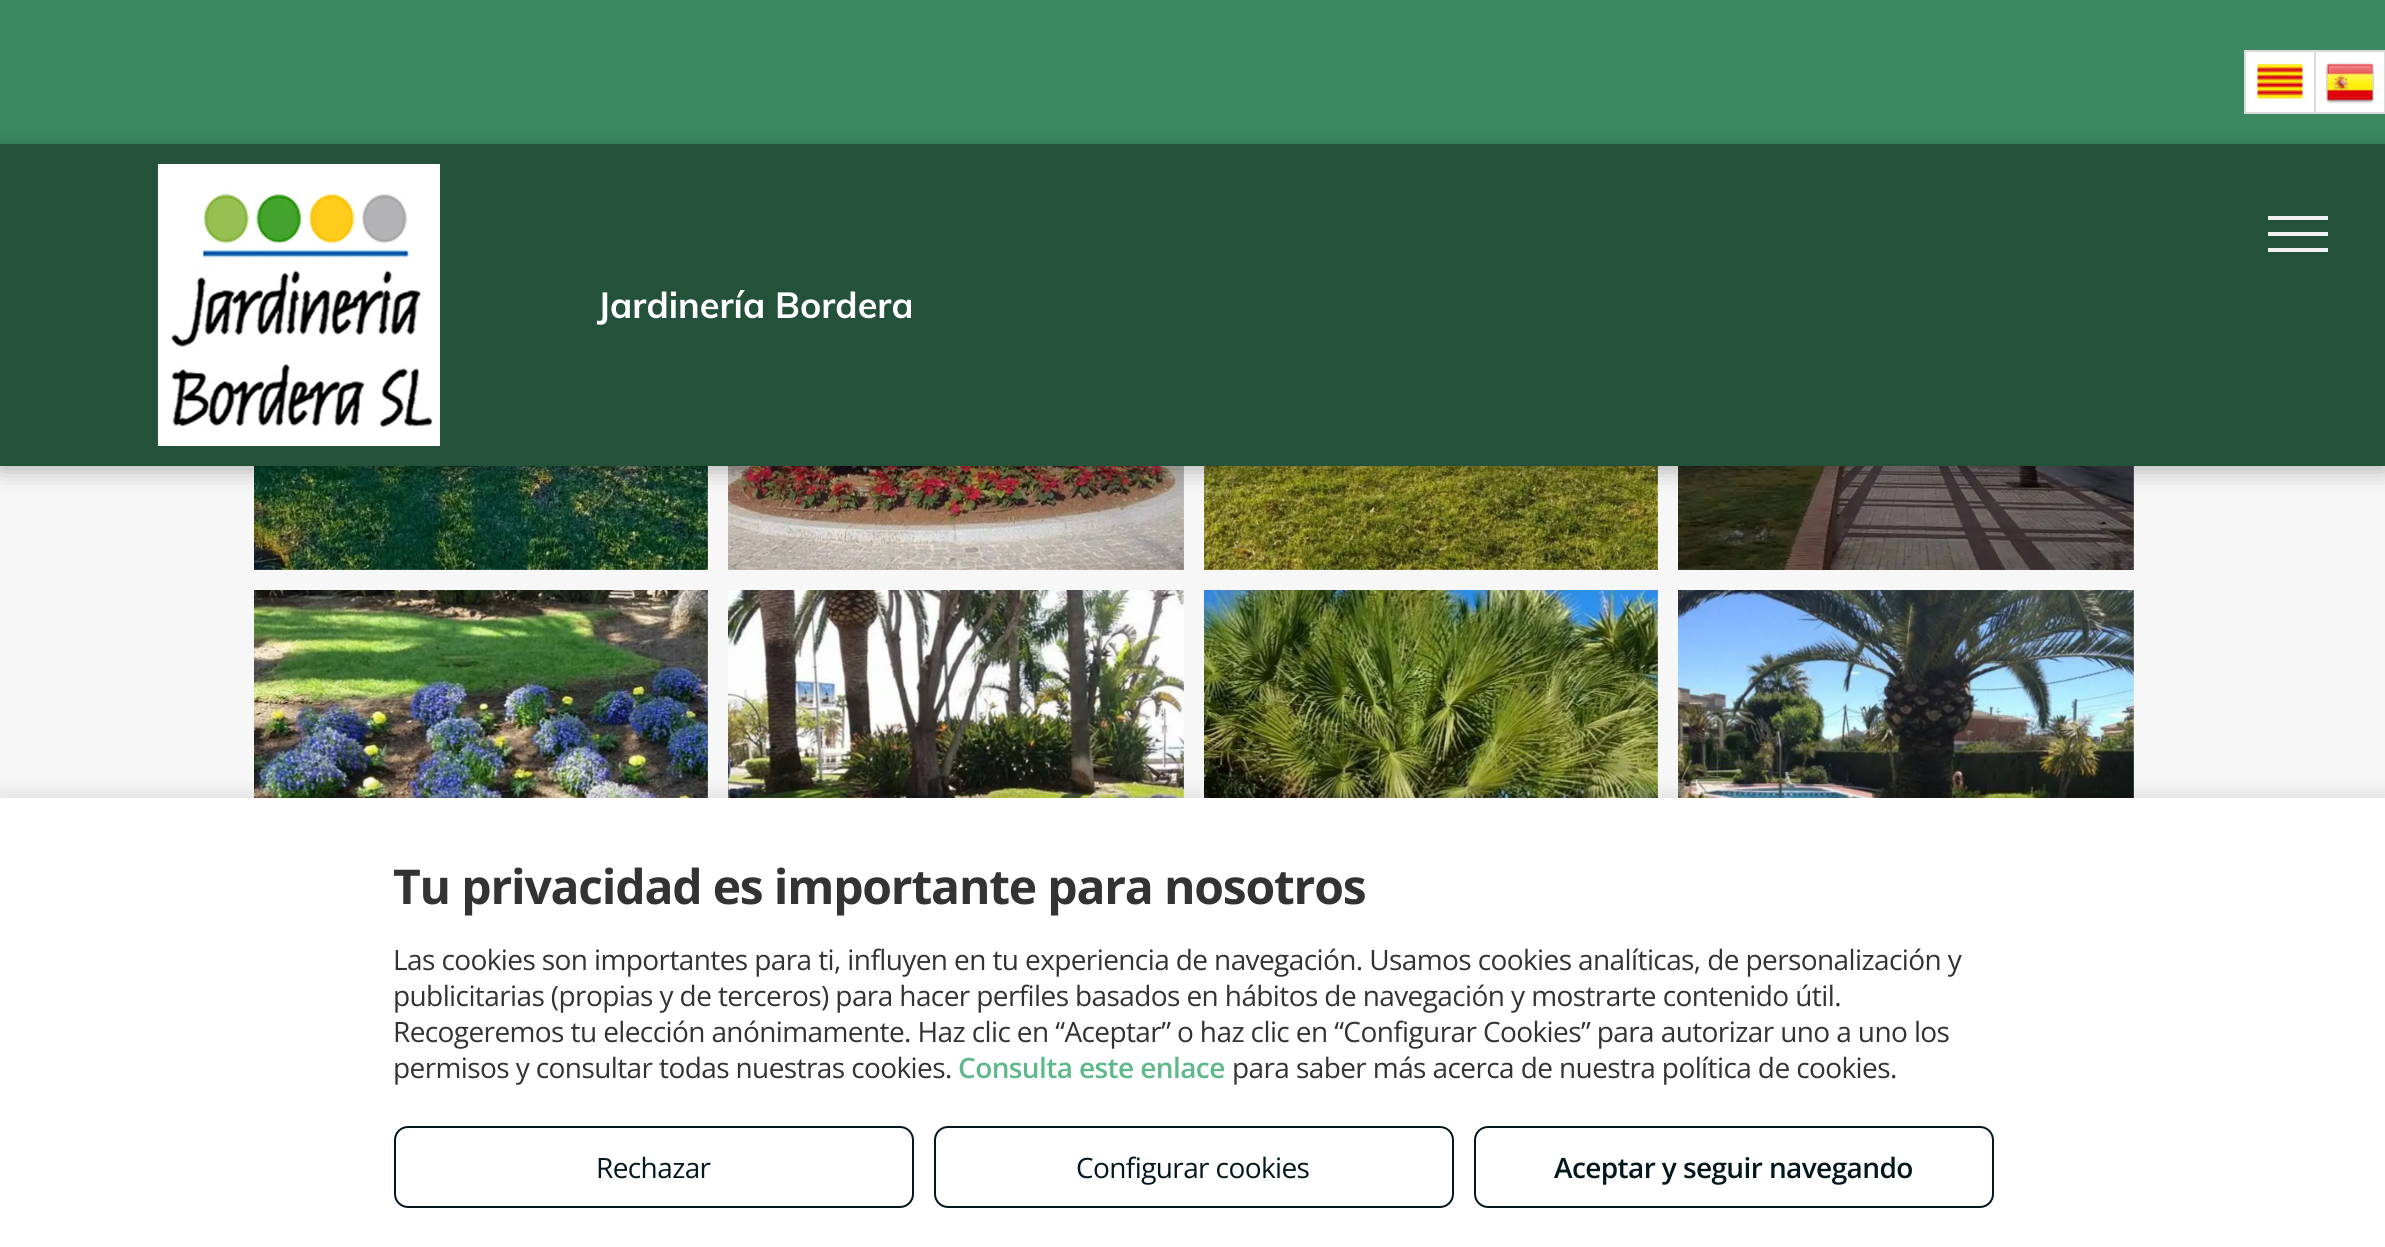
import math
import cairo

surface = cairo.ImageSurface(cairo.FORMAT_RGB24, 2385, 1247)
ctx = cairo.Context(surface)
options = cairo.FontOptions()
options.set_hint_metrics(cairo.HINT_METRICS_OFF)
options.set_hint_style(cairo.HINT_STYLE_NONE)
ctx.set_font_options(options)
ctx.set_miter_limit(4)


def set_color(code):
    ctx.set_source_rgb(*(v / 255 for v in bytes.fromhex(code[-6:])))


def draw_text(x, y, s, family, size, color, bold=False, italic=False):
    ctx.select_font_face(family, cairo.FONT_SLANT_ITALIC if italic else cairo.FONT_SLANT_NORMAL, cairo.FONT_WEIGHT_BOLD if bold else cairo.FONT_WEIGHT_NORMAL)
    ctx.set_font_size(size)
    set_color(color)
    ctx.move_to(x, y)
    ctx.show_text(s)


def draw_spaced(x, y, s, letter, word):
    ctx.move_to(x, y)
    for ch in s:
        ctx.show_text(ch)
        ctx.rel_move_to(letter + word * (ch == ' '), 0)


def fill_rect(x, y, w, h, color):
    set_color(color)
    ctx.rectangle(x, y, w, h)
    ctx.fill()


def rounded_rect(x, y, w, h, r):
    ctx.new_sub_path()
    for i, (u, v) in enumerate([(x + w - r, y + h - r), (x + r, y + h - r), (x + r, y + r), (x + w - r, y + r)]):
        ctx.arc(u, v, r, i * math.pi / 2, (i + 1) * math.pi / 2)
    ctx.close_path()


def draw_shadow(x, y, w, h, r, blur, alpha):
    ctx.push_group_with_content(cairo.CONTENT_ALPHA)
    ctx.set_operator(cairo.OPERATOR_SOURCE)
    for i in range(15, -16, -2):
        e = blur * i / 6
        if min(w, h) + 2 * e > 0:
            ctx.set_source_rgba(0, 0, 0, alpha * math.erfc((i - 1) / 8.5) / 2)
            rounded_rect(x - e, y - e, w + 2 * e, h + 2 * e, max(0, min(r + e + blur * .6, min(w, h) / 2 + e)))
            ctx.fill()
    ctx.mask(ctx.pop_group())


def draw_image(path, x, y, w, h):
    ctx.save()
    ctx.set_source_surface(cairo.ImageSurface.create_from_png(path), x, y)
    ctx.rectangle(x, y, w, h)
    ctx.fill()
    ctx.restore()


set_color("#f7f7f7")
ctx.paint()
fill_rect(0, 0, 2385, 144, "#3c8961")
draw_image("assets/img4.png", 254, 466, 454, 104)
draw_image("assets/img5.png", 728, 466, 456, 104)
draw_image("assets/img6.png", 1204, 466, 454, 104)
draw_image("assets/img7.png", 1678, 466, 456, 104)
set_color("#000000")
draw_shadow(0, 150, 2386, 322, 0, 11, 0.25)
fill_rect(0, 144, 2385, 322, "#245139")
fill_rect(2268, 216, 60, 4, "#f0f0f0")
fill_rect(2268, 232, 60, 4, "#f0f0f0")
fill_rect(2268, 248, 60, 4, "#f0f0f0")
fill_rect(2246, 52, 68, 60, "#ffffff")
fill_rect(2244, 50, 70, 2, "#dadada")
fill_rect(2244, 112, 70, 2, "#dadada")
fill_rect(2244, 50, 2, 64, "#dadada")
draw_image("assets/img1.png", 2257, 63, 46, 36)
set_color("#ffffff")
ctx.rectangle(2315, 51, 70, 62)
ctx.fill_preserve()
set_color("#dadada")
ctx.stroke()
draw_image("assets/img2.png", 2326, 62, 48, 42)
draw_image("assets/img3.png", 157, 164, 283, 282)
draw_text(597, 318, "Jardinería Bordera", "Muli", 36, "#ffffff", bold=True)
draw_image("assets/img8.png", 254, 590, 454, 208)
draw_image("assets/img9.png", 728, 590, 456, 208)
draw_image("assets/img10.png", 1204, 590, 454, 208)
draw_image("assets/img11.png", 1678, 590, 456, 208)
set_color("#000000")
draw_shadow(0, 794, 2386, 450, 0, 10, 0.1)
fill_rect(0, 798, 2385, 449, "#ffffff")
ctx.select_font_face("Open Sans", cairo.FONT_SLANT_NORMAL, cairo.FONT_WEIGHT_BOLD)
ctx.set_font_size(48)
set_color("#333333")
draw_spaced(393, 904, "Tu privacidad es importante para nosotros", -1.2, 0)
ctx.select_font_face("Open Sans")
ctx.set_font_size(28)
draw_spaced(393, 970, "Las cookies son importantes para ti, influyen en tu experiencia de navegación. Usamos cookies analíticas, de personalización y", -0.6, 0)
draw_spaced(393, 1006, "publicitarias (propias y de terceros) para hacer perfiles basados en hábitos de navegación y mostrarte contenido útil.", -0.6, 0)
draw_spaced(393, 1042, "Recogeremos tu elección anónimamente. Haz clic en “Aceptar” o haz clic en “Configurar Cookies” para autorizar uno a uno los", -0.6, 0)
draw_spaced(393, 1078, "permisos y consultar todas nuestras cookies.", -0.6, 0)
ctx.select_font_face("Open Sans SemiBold")
set_color("#5eb889")
draw_spaced(958, 1078, "Consulta este enlace", -0.6, 0)
ctx.select_font_face("Open Sans")
set_color("#333333")
draw_spaced(1232, 1078, "para saber más acerca de nuestra política de cookies.", -0.6, 0)
rounded_rect(395, 1127, 518, 80, 13)
set_color("#03181e")
ctx.stroke()
draw_spaced(596, 1178, "Rechazar", -0.6, 0)
rounded_rect(935, 1127, 518, 80, 13)
ctx.stroke()
draw_spaced(1076, 1178, "Configurar cookies", -0.6, 0)
rounded_rect(1475, 1127, 518, 80, 13)
ctx.stroke()
ctx.select_font_face("Open Sans SemiBold")
draw_spaced(1554, 1178, "Aceptar y seguir navegando", -0.6, 0)
surface.write_to_png("output.png")
